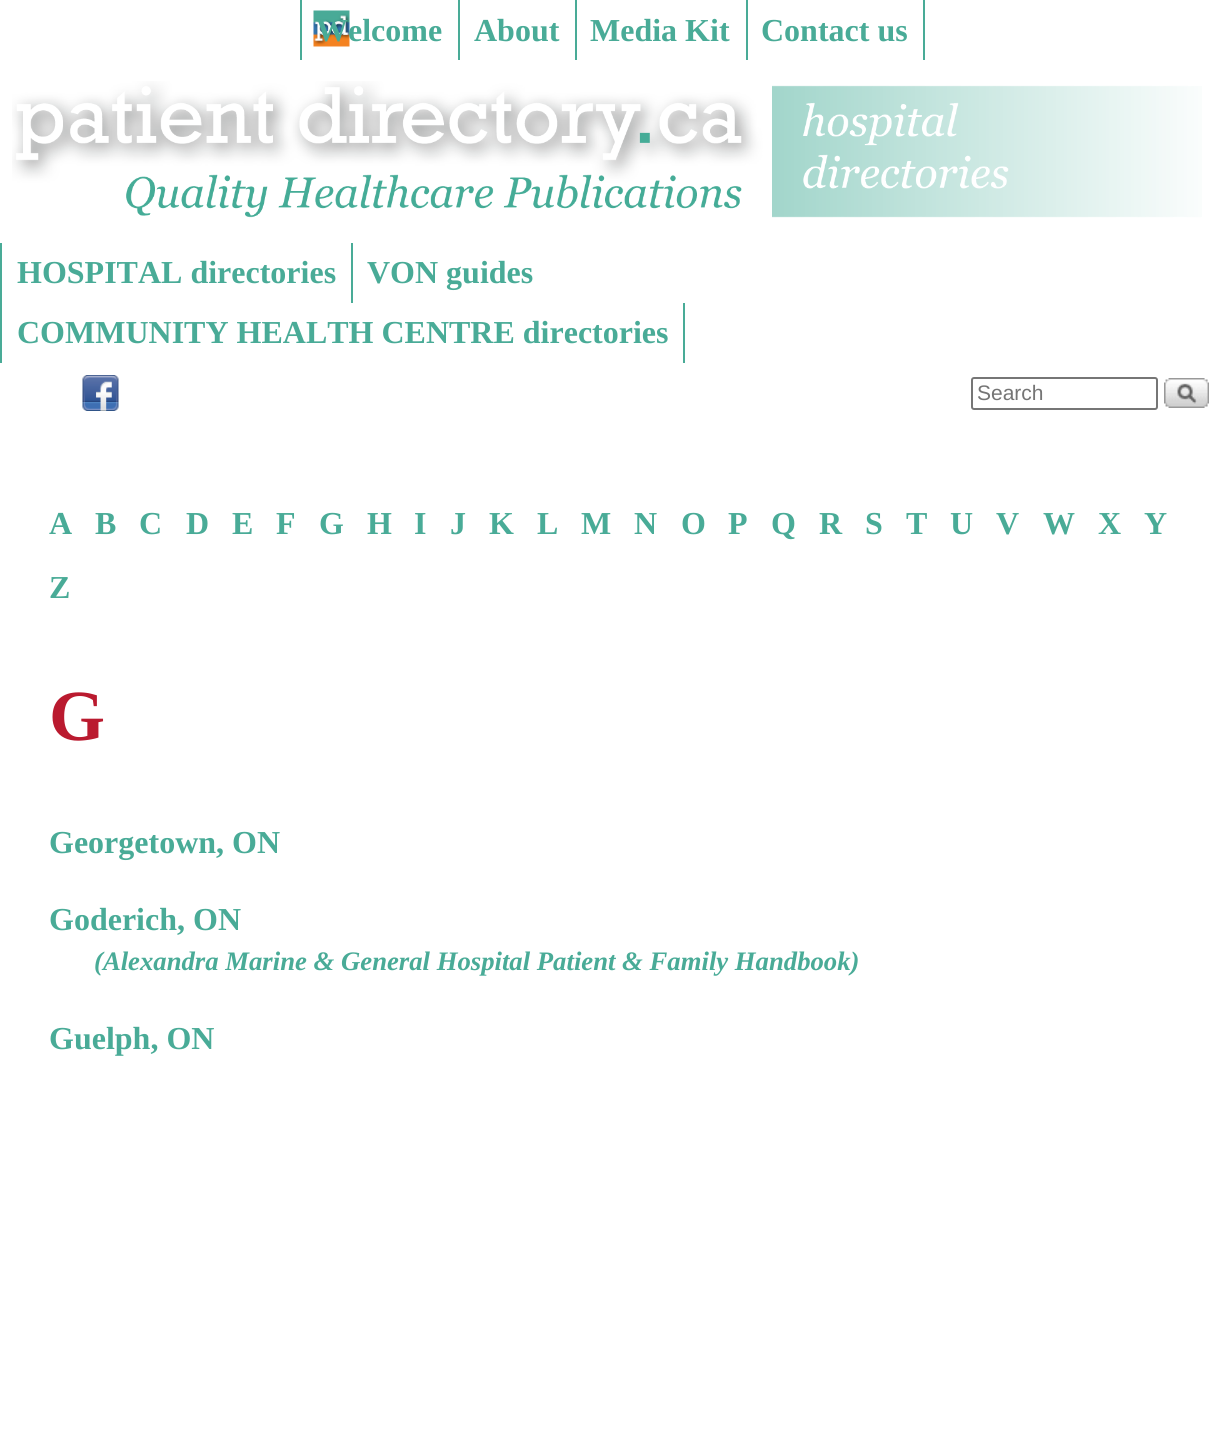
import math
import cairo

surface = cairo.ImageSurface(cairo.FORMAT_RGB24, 1224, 1430)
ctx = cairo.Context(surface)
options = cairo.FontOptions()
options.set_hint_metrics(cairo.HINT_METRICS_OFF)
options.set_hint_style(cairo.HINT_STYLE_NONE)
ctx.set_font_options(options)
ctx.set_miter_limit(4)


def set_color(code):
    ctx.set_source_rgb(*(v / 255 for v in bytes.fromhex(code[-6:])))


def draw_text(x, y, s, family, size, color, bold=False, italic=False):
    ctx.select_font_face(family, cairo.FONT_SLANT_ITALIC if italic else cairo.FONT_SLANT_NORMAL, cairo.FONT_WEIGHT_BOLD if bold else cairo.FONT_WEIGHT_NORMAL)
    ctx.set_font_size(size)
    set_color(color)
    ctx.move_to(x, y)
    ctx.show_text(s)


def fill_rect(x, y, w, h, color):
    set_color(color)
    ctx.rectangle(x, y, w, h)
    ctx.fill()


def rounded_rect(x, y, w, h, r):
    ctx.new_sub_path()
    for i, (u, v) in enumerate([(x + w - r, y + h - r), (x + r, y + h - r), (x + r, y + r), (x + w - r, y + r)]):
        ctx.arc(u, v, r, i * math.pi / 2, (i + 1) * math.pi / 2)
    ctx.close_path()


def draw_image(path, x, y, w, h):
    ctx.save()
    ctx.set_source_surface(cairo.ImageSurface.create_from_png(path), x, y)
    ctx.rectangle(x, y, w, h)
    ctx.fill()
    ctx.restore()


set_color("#ffffff")
ctx.paint()
draw_image("assets/img1.png", 313, 10, 37, 37)
fill_rect(300, 0, 2, 60, "#49ab97")
draw_text(316, 41, "Welcome", "Liberation Serif", 32, "#49ab97", bold=True)
fill_rect(458, 0, 2, 60, "#49ab97")
draw_text(474, 41, "About", "Liberation Serif", 32, "#49ab97", bold=True)
fill_rect(575, 0, 2, 60, "#49ab97")
draw_text(590, 41, "Media Kit", "Liberation Serif", 32, "#49ab97", bold=True)
fill_rect(923, 0, 2, 60, "#49ab97")
fill_rect(746, 0, 2, 60, "#49ab97")
draw_text(761, 41, "Contact us", "Liberation Serif", 32, "#49ab97", bold=True)
draw_image("assets/img2.png", 12, 81, 1190, 137)
fill_rect(0, 243, 2, 120, "#49ab97")
draw_text(17, 283, "HOSPITAL directories", "Liberation Serif", 32, "#49ab97", bold=True)
fill_rect(351, 243, 2, 60, "#49ab97")
draw_text(367, 283, "VON guides", "Liberation Serif", 32, "#49ab97", bold=True)
fill_rect(683, 303, 2, 60, "#49ab97")
draw_text(17, 343, "COMMUNITY HEALTH CENTRE directories", "Liberation Serif", 32, "#49ab97", bold=True)
draw_image("assets/img3.png", 82, 375, 37, 36)
rounded_rect(972, 378, 185, 31, 2)
set_color("#767676")
ctx.stroke()
draw_text(977, 400, "Search", "Liberation Sans", 21, "#757575")
draw_image("assets/img4.png", 1164, 378, 45, 30)
draw_text(49, 534, "A", "Liberation Serif", 32, "#49ab97", bold=True)
draw_text(95, 534, "B", "Liberation Serif", 32, "#49ab97", bold=True)
draw_text(139, 534, "C", "Liberation Serif", 32, "#49ab97", bold=True)
draw_text(186, 534, "D", "Liberation Serif", 32, "#49ab97", bold=True)
draw_text(232, 534, "E", "Liberation Serif", 32, "#49ab97", bold=True)
draw_text(276, 534, "F", "Liberation Serif", 32, "#49ab97", bold=True)
draw_text(319, 534, "G", "Liberation Serif", 32, "#49ab97", bold=True)
draw_text(367, 534, "H", "Liberation Serif", 32, "#49ab97", bold=True)
draw_text(414, 534, "I", "Liberation Serif", 32, "#49ab97", bold=True)
draw_text(450, 534, "J", "Liberation Serif", 32, "#49ab97", bold=True)
draw_text(489, 534, "K", "Liberation Serif", 32, "#49ab97", bold=True)
draw_text(537, 534, "L", "Liberation Serif", 32, "#49ab97", bold=True)
draw_text(581, 534, "M", "Liberation Serif", 32, "#49ab97", bold=True)
draw_text(634, 534, "N", "Liberation Serif", 32, "#49ab97", bold=True)
draw_text(681, 534, "O", "Liberation Serif", 32, "#49ab97", bold=True)
draw_text(728, 534, "P", "Liberation Serif", 32, "#49ab97", bold=True)
draw_text(771, 534, "Q", "Liberation Serif", 32, "#49ab97", bold=True)
draw_text(819, 534, "R", "Liberation Serif", 32, "#49ab97", bold=True)
draw_text(865, 534, "S", "Liberation Serif", 32, "#49ab97", bold=True)
draw_text(906, 534, "T", "Liberation Serif", 32, "#49ab97", bold=True)
draw_text(950, 534, "U", "Liberation Serif", 32, "#49ab97", bold=True)
draw_text(996, 534, "V", "Liberation Serif", 32, "#49ab97", bold=True)
draw_text(1043, 534, "W", "Liberation Serif", 32, "#49ab97", bold=True)
draw_text(1098, 534, "X", "Liberation Serif", 32, "#49ab97", bold=True)
draw_text(1144, 534, "Y", "Liberation Serif", 32, "#49ab97", bold=True)
draw_text(49, 598, "Z", "Liberation Serif", 32, "#49ab97", bold=True)
draw_text(49, 740, "G", "Liberation Serif", 72, "#ba1a2f", bold=True)
draw_text(49, 853, "Georgetown, ON", "Liberation Serif", 32, "#49ab97", bold=True)
draw_text(49, 930, "Goderich, ON", "Liberation Serif", 32, "#49ab97", bold=True)
draw_text(94, 970, "(Alexandra Marine & General Hospital Patient & Family Handbook)", "Liberation Serif", 26.7, "#49ab97", bold=True, italic=True)
draw_text(49, 1049, "Guelph, ON", "Liberation Serif", 32, "#49ab97", bold=True)
surface.write_to_png("output.png")
